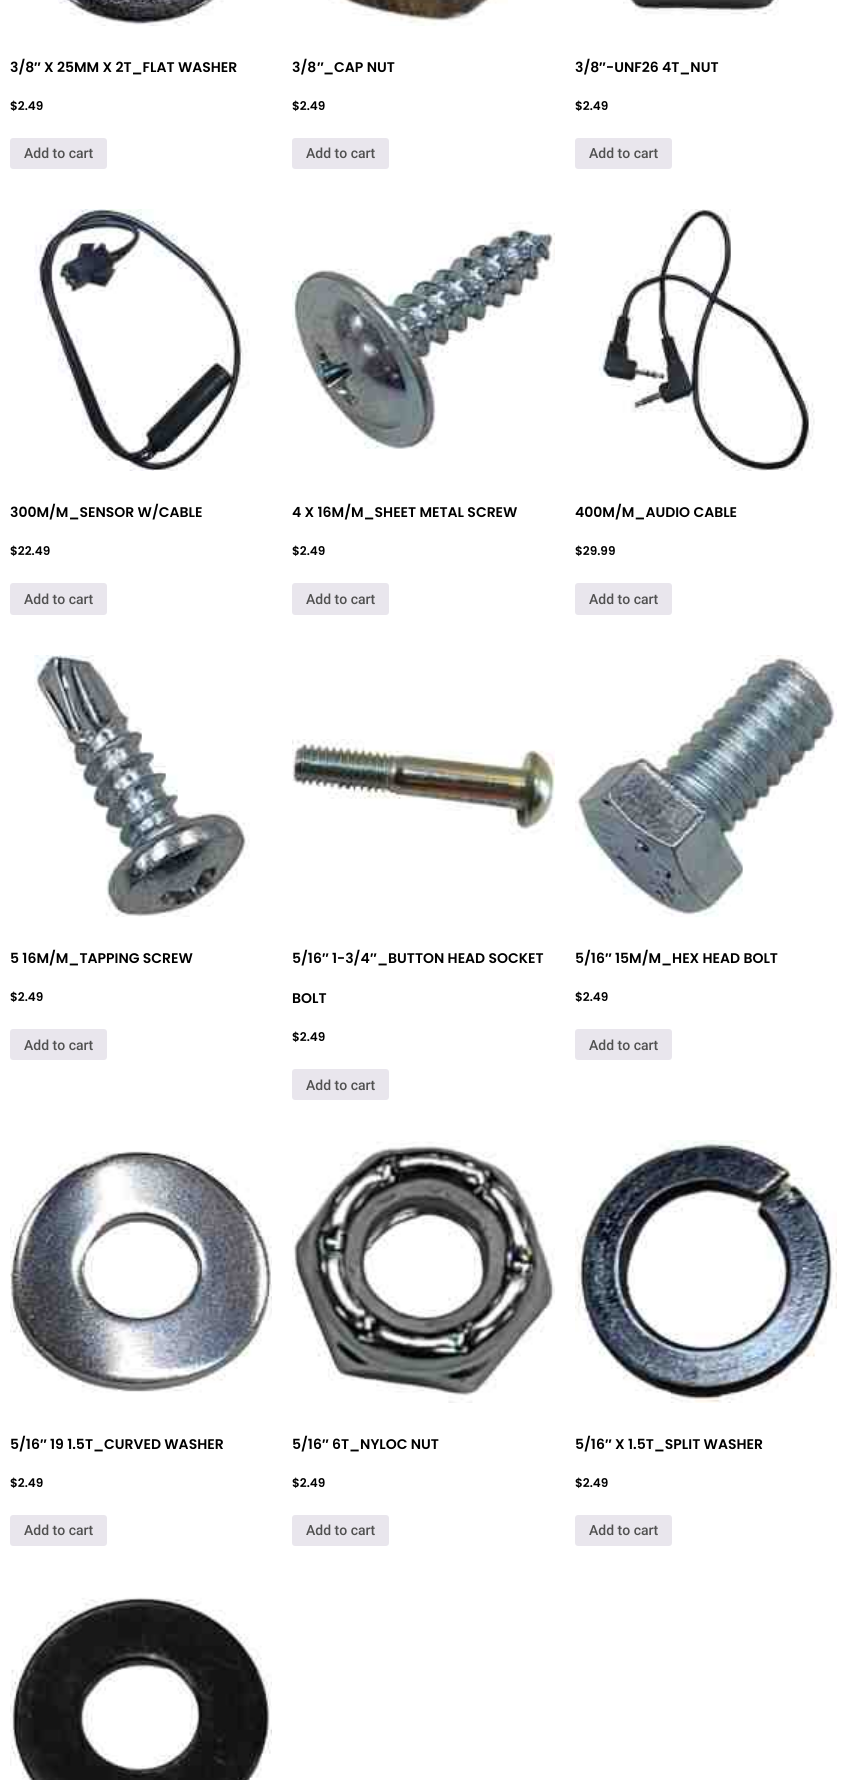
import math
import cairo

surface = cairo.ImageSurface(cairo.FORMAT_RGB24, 847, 1780)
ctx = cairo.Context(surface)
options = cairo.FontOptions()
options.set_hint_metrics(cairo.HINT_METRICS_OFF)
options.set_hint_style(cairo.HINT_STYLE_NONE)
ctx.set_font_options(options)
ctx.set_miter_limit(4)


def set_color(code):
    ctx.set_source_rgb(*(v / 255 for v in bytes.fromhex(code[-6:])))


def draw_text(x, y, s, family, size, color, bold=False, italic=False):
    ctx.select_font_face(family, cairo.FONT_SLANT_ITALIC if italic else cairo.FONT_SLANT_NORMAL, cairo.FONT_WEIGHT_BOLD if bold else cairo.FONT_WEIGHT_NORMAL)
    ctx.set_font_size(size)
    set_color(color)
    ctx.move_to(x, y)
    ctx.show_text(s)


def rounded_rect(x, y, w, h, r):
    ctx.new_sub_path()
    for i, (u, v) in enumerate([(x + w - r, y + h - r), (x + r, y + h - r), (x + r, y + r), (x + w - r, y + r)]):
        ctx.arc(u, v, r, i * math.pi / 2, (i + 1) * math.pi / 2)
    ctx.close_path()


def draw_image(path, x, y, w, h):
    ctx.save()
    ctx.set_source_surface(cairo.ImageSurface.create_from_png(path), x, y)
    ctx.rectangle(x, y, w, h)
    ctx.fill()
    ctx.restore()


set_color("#ffffff")
ctx.paint()
draw_image("assets/img1.png", 58, 0, 166, 26)
draw_text(10, 72, "3/8", "Poppins SemiBold", 14, "#000000")
draw_text(34, 72, "″", "Liberation Sans", 14, "#000000", bold=True)
draw_text(44, 72, "X 25MM X 2T_FLAT WASHER", "Poppins SemiBold", 14, "#000000")
draw_text(10, 110, "$2.49", "Poppins SemiBold", 12, "#000000")
set_color("#e9e6ed")
rounded_rect(10, 138, 97, 31, 3)
ctx.fill()
draw_text(24, 158, "Add to cart", "Roboto Medium", 14, "#515151")
draw_image("assets/img2.png", 328, 0, 180, 26)
draw_text(292, 72, "3/8", "Poppins SemiBold", 14, "#000000")
draw_text(317, 72, "″", "Liberation Sans", 14, "#000000", bold=True)
draw_text(323, 72, "_CAP NUT", "Poppins SemiBold", 14, "#000000")
draw_text(292, 110, "$2.49", "Poppins SemiBold", 12, "#000000")
set_color("#e9e6ed")
rounded_rect(292, 138, 97, 31, 3)
ctx.fill()
draw_text(306, 158, "Add to cart", "Roboto Medium", 14, "#515151")
draw_image("assets/img3.png", 623, 0, 156, 16)
draw_text(575, 72, "3/8", "Poppins SemiBold", 14, "#000000")
draw_text(599, 72, "″", "Liberation Sans", 14, "#000000", bold=True)
draw_text(606, 72, "-UNF26 4T_NUT", "Poppins SemiBold", 14, "#000000")
draw_text(575, 110, "$2.49", "Poppins SemiBold", 12, "#000000")
set_color("#e9e6ed")
rounded_rect(575, 138, 97, 31, 3)
ctx.fill()
draw_text(589, 158, "Add to cart", "Roboto Medium", 14, "#515151")
draw_image("assets/img4.png", 34, 209, 216, 262)
draw_text(10, 517, "300M/M_SENSOR W/CABLE", "Poppins SemiBold", 14, "#000000")
draw_text(10, 555, "$22.49", "Poppins SemiBold", 12, "#000000")
set_color("#e9e6ed")
rounded_rect(10, 583, 97, 32, 3)
ctx.fill()
draw_text(24, 604, "Add to cart", "Roboto Medium", 14, "#515151")
draw_image("assets/img5.png", 292, 221, 263, 228)
draw_text(292, 517, "4 X 16M/M_SHEET METAL SCREW", "Poppins SemiBold", 14, "#000000")
draw_text(292, 555, "$2.49", "Poppins SemiBold", 12, "#000000")
set_color("#e9e6ed")
rounded_rect(292, 583, 97, 32, 3)
ctx.fill()
draw_text(306, 604, "Add to cart", "Roboto Medium", 14, "#515151")
draw_image("assets/img6.png", 598, 209, 217, 262)
draw_text(575, 517, "400M/M_AUDIO CABLE", "Poppins SemiBold", 14, "#000000")
draw_text(575, 555, "$29.99", "Poppins SemiBold", 12, "#000000")
set_color("#e9e6ed")
rounded_rect(575, 583, 97, 32, 3)
ctx.fill()
draw_text(589, 604, "Add to cart", "Roboto Medium", 14, "#515151")
draw_image("assets/img7.png", 34, 655, 216, 262)
draw_text(10, 963, "5 16M/M_TAPPING SCREW", "Poppins SemiBold", 14, "#000000")
draw_text(10, 1001, "$2.49", "Poppins SemiBold", 12, "#000000")
set_color("#e9e6ed")
rounded_rect(10, 1029, 97, 31, 3)
ctx.fill()
draw_text(24, 1050, "Add to cart", "Roboto Medium", 14, "#515151")
draw_image("assets/img8.png", 292, 739, 263, 96)
draw_text(292, 963, "5/16", "Poppins SemiBold", 14, "#000000")
draw_text(322, 963, "″", "Liberation Sans", 14, "#000000", bold=True)
draw_text(332, 963, "1-3/4", "Poppins SemiBold", 14, "#000000")
draw_text(370, 963, "″", "Liberation Sans", 14, "#000000", bold=True)
draw_text(377, 963, "_BUTTON HEAD SOCKET", "Poppins SemiBold", 14, "#000000")
draw_text(292, 1003, "BOLT", "Poppins SemiBold", 14, "#000000")
draw_text(292, 1041, "$2.49", "Poppins SemiBold", 12, "#000000")
set_color("#e9e6ed")
rounded_rect(292, 1069, 97, 31, 3)
ctx.fill()
draw_text(306, 1090, "Add to cart", "Roboto Medium", 14, "#515151")
draw_image("assets/img9.png", 575, 655, 262, 262)
draw_text(575, 963, "5/16", "Poppins SemiBold", 14, "#000000")
draw_text(605, 963, "″", "Liberation Sans", 14, "#000000", bold=True)
draw_text(615, 963, "15M/M_HEX HEAD BOLT", "Poppins SemiBold", 14, "#000000")
draw_text(575, 1001, "$2.49", "Poppins SemiBold", 12, "#000000")
set_color("#e9e6ed")
rounded_rect(575, 1029, 97, 31, 3)
ctx.fill()
draw_text(589, 1050, "Add to cart", "Roboto Medium", 14, "#515151")
draw_image("assets/img10.png", 10, 1151, 262, 242)
draw_text(10, 1449, "5/16", "Poppins SemiBold", 14, "#000000")
draw_text(40, 1449, "″", "Liberation Sans", 14, "#000000", bold=True)
draw_text(50, 1449, "19 1.5T_CURVED WASHER", "Poppins SemiBold", 14, "#000000")
draw_text(10, 1487, "$2.49", "Poppins SemiBold", 12, "#000000")
set_color("#e9e6ed")
rounded_rect(10, 1515, 97, 31, 3)
ctx.fill()
draw_text(24, 1535, "Add to cart", "Roboto Medium", 14, "#515151")
draw_image("assets/img11.png", 292, 1140, 263, 263)
draw_text(292, 1449, "5/16", "Poppins SemiBold", 14, "#000000")
draw_text(322, 1449, "″", "Liberation Sans", 14, "#000000", bold=True)
draw_text(332, 1449, "6T_NYLOC NUT", "Poppins SemiBold", 14, "#000000")
draw_text(292, 1487, "$2.49", "Poppins SemiBold", 12, "#000000")
set_color("#e9e6ed")
rounded_rect(292, 1515, 97, 31, 3)
ctx.fill()
draw_text(306, 1535, "Add to cart", "Roboto Medium", 14, "#515151")
draw_image("assets/img12.png", 575, 1140, 262, 263)
draw_text(575, 1449, "5/16", "Poppins SemiBold", 14, "#000000")
draw_text(605, 1449, "″", "Liberation Sans", 14, "#000000", bold=True)
draw_text(615, 1449, "X 1.5T_SPLIT WASHER", "Poppins SemiBold", 14, "#000000")
draw_text(575, 1487, "$2.49", "Poppins SemiBold", 12, "#000000")
set_color("#e9e6ed")
rounded_rect(575, 1515, 97, 31, 3)
ctx.fill()
draw_text(589, 1535, "Add to cart", "Roboto Medium", 14, "#515151")
draw_image("assets/img13.png", 10, 1597, 262, 183)
surface.write_to_png("output.png")
